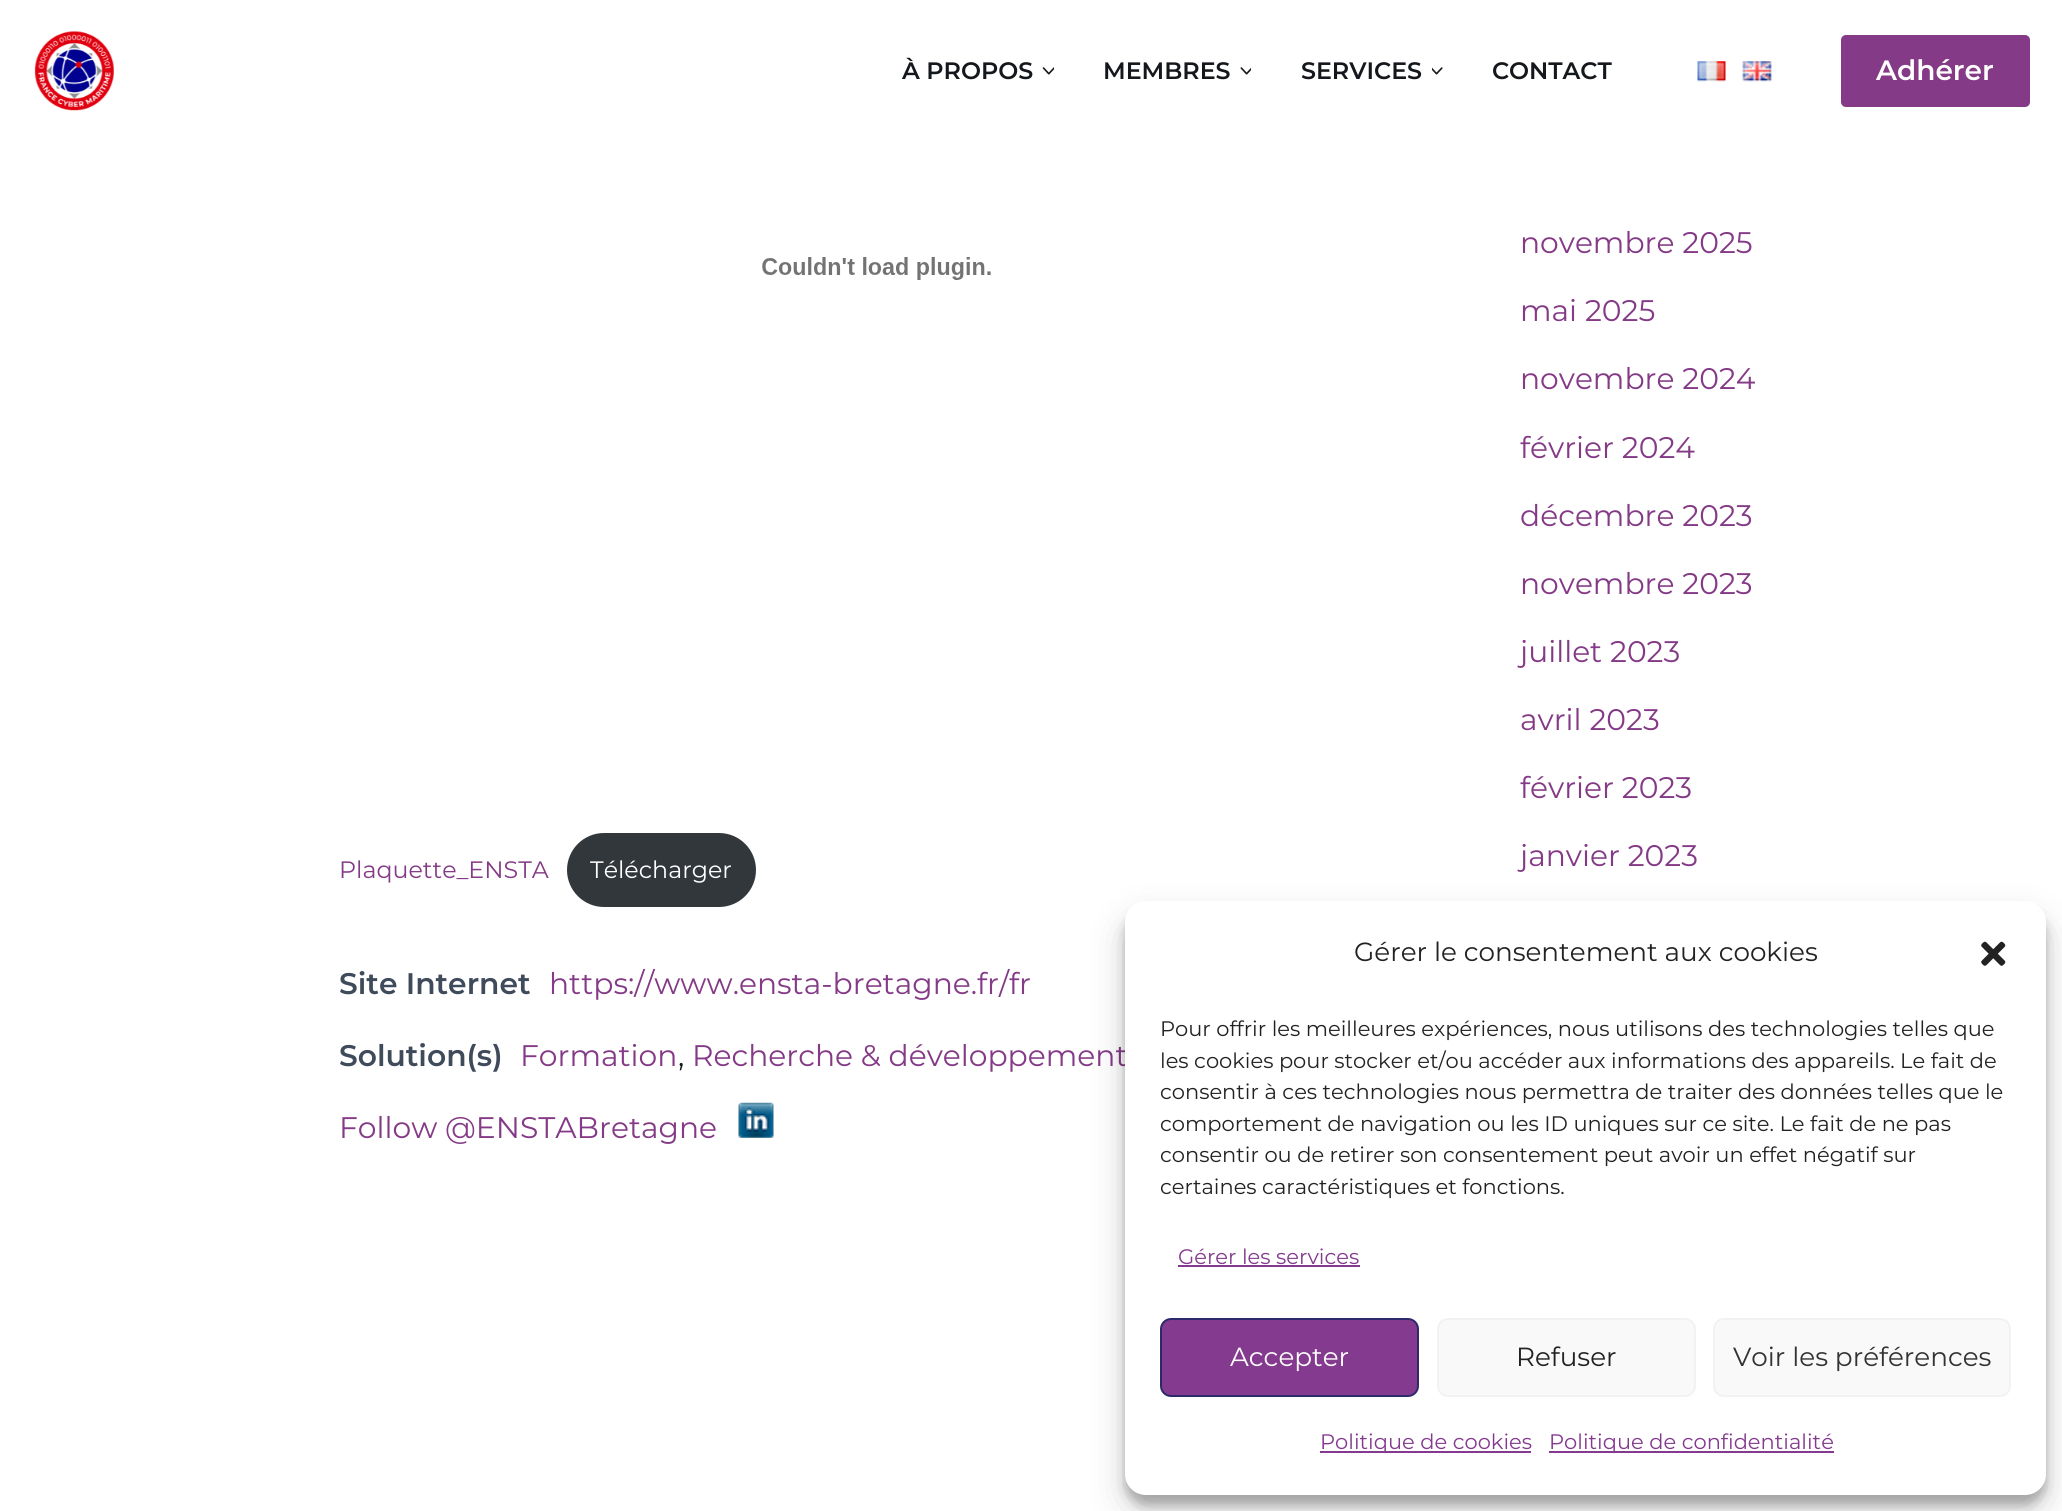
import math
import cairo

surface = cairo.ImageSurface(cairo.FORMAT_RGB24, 2062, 1511)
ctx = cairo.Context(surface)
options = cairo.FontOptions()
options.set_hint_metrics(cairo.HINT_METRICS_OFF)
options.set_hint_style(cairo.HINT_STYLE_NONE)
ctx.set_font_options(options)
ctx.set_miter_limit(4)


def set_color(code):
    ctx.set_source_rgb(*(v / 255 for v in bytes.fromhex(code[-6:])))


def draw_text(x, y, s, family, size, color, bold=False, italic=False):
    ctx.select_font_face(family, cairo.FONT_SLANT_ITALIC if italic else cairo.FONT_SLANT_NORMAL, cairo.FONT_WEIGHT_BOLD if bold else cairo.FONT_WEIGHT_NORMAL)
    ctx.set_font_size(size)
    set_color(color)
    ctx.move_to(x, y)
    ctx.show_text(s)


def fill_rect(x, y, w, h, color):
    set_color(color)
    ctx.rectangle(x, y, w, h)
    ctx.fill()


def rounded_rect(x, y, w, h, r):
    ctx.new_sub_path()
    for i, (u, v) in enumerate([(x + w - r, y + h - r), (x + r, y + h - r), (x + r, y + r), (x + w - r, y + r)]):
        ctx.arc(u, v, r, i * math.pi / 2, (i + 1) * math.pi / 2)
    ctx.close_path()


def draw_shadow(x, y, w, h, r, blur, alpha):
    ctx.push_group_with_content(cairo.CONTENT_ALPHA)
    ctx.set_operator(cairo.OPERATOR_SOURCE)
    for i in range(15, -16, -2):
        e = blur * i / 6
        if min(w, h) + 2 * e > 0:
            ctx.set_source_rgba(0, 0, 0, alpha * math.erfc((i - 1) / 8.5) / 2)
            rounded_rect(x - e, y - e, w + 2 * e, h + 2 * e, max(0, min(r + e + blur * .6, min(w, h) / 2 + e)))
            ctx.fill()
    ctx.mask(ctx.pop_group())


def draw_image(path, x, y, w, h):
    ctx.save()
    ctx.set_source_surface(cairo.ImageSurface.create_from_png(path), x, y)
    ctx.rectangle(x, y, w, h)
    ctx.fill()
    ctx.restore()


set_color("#ffffff")
ctx.paint()
draw_image("assets/img1.png", 34, 31, 80, 80)
draw_text(902, 79, "À PROPOS", "Montserrat SemiBold", 23.75, "#14171c")
draw_image("assets/img2.png", 1042, 67, 12, 8)
draw_text(1103, 79, "MEMBRES", "Montserrat SemiBold", 23.75, "#14171c")
draw_image("assets/img3.png", 1240, 67, 11, 8)
draw_text(1301, 79, "SERVICES", "Montserrat SemiBold", 23.75, "#14171c")
draw_image("assets/img4.png", 1432, 67, 11, 8)
draw_text(1492, 79, "CONTACT", "Montserrat SemiBold", 23.75, "#14171c")
draw_image("assets/img5.png", 1697, 61, 29, 21)
draw_image("assets/img6.png", 1742, 61, 30, 21)
set_color("#843a86")
rounded_rect(1841, 35, 189, 72, 5)
ctx.fill()
draw_text(1876, 80, "Adhérer", "Montserrat SemiBold", 28, "#ffffff")
draw_text(1520, 253, "novembre 2025", "Montserrat", 29.75, "#843a86")
draw_text(1520, 321, "mai 2025", "Montserrat", 29.75, "#843a86")
draw_text(1520, 389, "novembre 2024", "Montserrat", 29.75, "#843a86")
draw_text(1520, 458, "février 2024", "Montserrat", 29.75, "#843a86")
draw_text(1520, 526, "décembre 2023", "Montserrat", 29.75, "#843a86")
draw_text(1520, 594, "novembre 2023", "Montserrat", 29.75, "#843a86")
draw_text(1520, 662, "juillet 2023", "Montserrat", 29.75, "#843a86")
draw_text(1520, 730, "avril 2023", "Montserrat", 29.75, "#843a86")
draw_text(1520, 798, "février 2023", "Montserrat", 29.75, "#843a86")
draw_text(1520, 866, "janvier 2023", "Montserrat", 29.75, "#843a86")
draw_image("assets/img7.png", 762, 257, 229, 23)
draw_text(339, 878, "Plaquette_ENSTA", "Montserrat", 23.75, "#843a86")
set_color("#32373c")
rounded_rect(567, 833, 189, 74, 37)
ctx.fill()
draw_text(590, 878, "Télécharger", "Montserrat", 23.75, "#ffffff")
draw_text(339, 994, "Site Internet", "Montserrat SemiBold", 29.75, "#3f4b5b")
draw_text(549, 994, "https://www.ensta-bretagne.fr/fr", "Montserrat", 29.75, "#843a86")
draw_text(339, 1066, "Solution(s)", "Montserrat SemiBold", 29.75, "#3f4b5b")
draw_text(520, 1066, "Formation", "Montserrat", 29.75, "#843a86")
draw_text(678, 1066, ",", "Montserrat", 29.75, "#14171c")
draw_text(692, 1066, "Recherche & développement", "Montserrat", 29.75, "#843a86")
draw_text(339, 1138, "Follow @ENSTABretagne", "Montserrat", 29.75, "#843a86")
draw_image("assets/img8.png", 738, 1102, 36, 36)
set_color("#000000")
draw_shadow(1125, 912, 921, 593, 21, 5, 0.23)
draw_shadow(1125, 919, 921, 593, 21, 17.5, 0.19)
set_color("#ffffff")
rounded_rect(1125, 901, 921, 594, 21)
ctx.fill()
draw_text(1354, 961, "Gérer le consentement aux cookies", "Montserrat", 26.25, "#222222")
draw_image("assets/img9.png", 1981, 941, 25, 25)
draw_text(1160, 1036, "Pour offrir les meilleures expériences, nous utilisons des technologies telles que", "Montserrat", 21, "#222222")
draw_text(1160, 1068, "les cookies pour stocker et/ou accéder aux informations des appareils. Le fait de", "Montserrat", 21, "#222222")
draw_text(1160, 1099, "consentir à ces technologies nous permettra de traiter des données telles que le", "Montserrat", 21, "#222222")
draw_text(1160, 1131, "comportement de navigation ou les ID uniques sur ce site. Le fait de ne pas", "Montserrat", 21, "#222222")
draw_text(1160, 1162, "consentir ou de retirer son consentement peut avoir un effet négatif sur", "Montserrat", 21, "#222222")
draw_text(1160, 1194, "certaines caractéristiques et fonctions.", "Montserrat", 21, "#222222")
draw_text(1178, 1264, "Gérer les services", "Montserrat", 21, "#843a8e")
fill_rect(1178, 1265, 182, 2, "#843a8e")
rounded_rect(1161, 1319, 257, 77, 10)
ctx.fill_preserve()
set_color("#2d2a6b")
ctx.stroke()
draw_text(1230, 1366, "Accepter", "Montserrat", 26.25, "#ffffff")
set_color("#f9f9f9")
rounded_rect(1438, 1319, 257, 77, 10)
ctx.fill_preserve()
set_color("#f2f2f2")
ctx.stroke()
draw_text(1516, 1366, "Refuser", "Montserrat", 26.25, "#222222")
set_color("#f9f9f9")
rounded_rect(1714, 1319, 296, 77, 10)
ctx.fill_preserve()
set_color("#f2f2f2")
ctx.stroke()
draw_text(1733, 1366, "Voir les préférences", "Montserrat", 26.25, "#333333")
fill_rect(1320, 1451, 211, 2, "#843a8e")
draw_text(1320, 1449, "Politique de cookies", "Montserrat", 21, "#843a8e")
fill_rect(1549, 1451, 285, 2, "#843a8e")
draw_text(1549, 1449, "Politique de confidentialité", "Montserrat", 21, "#843a8e")
surface.write_to_png("output.png")
